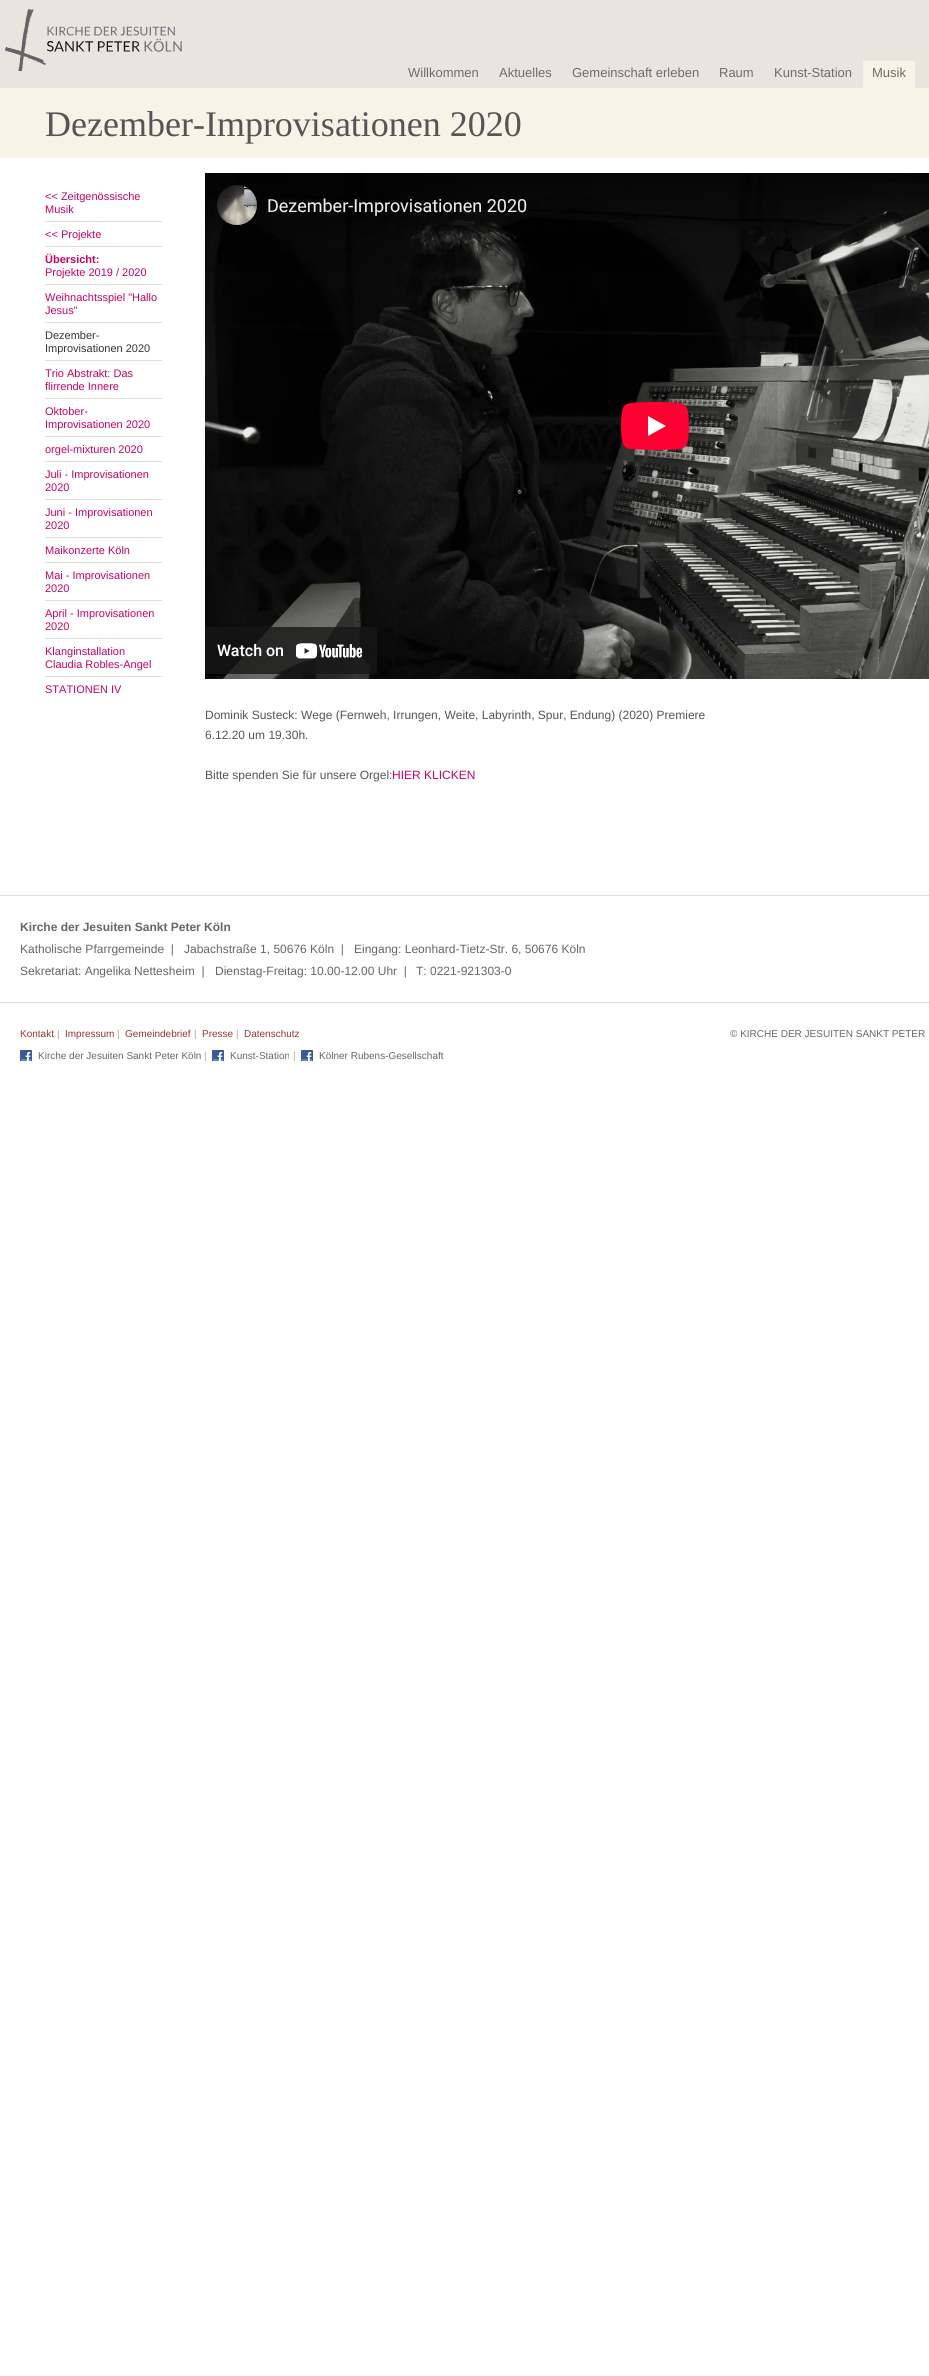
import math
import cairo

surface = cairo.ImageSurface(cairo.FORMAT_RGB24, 929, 2376)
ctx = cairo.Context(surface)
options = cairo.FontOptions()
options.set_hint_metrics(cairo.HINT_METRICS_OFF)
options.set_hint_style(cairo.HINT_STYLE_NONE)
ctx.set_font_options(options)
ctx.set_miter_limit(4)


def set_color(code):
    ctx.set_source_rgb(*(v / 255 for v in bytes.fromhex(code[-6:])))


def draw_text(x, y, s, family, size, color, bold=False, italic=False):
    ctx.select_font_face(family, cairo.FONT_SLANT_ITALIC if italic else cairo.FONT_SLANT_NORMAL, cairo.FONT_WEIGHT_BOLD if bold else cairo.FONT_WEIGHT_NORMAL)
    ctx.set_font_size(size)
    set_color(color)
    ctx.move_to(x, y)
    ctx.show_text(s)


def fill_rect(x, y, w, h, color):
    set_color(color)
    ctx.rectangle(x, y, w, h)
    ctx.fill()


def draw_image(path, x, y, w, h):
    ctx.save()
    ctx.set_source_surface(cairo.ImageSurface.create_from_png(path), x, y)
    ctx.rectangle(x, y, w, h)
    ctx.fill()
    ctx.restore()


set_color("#ffffff")
ctx.paint()
draw_image("assets/img1.png", 0, 0, 929, 158)
draw_image("assets/img2.png", 5, 9, 177, 62)
draw_text(408, 77, "Willkommen", "Liberation Sans", 13, "#706b67")
draw_text(499, 77, "Aktuelles", "Liberation Sans", 13, "#706b67")
draw_text(572, 77, "Gemeinschaft erleben", "Liberation Sans", 13, "#706b67")
draw_text(719, 77, "Raum", "Liberation Sans", 13, "#706b67")
draw_text(774, 77, "Kunst-Station", "Liberation Sans", 13, "#706b67")
fill_rect(863, 61, 52, 27, "#f6f3e7")
draw_text(872, 77, "Musik", "Liberation Sans", 13, "#706b67")
draw_text(45, 136, "Dezember-Improvisationen 2020", "Liberation Serif", 36, "#555555")
fill_rect(45, 221, 117, 1, "#dedede")
draw_text(45, 200, "<< Zeitgenössische", "Liberation Sans", 11, "#cc0066")
draw_text(45, 213, "Musik", "Liberation Sans", 11, "#cc0066")
fill_rect(45, 246, 117, 1, "#dedede")
draw_text(45, 238, "<< Projekte", "Liberation Sans", 11, "#cc0066")
fill_rect(45, 284, 117, 1, "#dedede")
draw_text(45, 263, "Übersicht:", "Liberation Sans", 11, "#cc0066", bold=True)
draw_text(45, 276, "Projekte 2019 / 2020", "Liberation Sans", 11, "#cc0066")
fill_rect(45, 322, 117, 1, "#dedede")
draw_text(45, 301, "Weihnachtsspiel \"Hallo", "Liberation Sans", 11, "#cc0066")
draw_text(45, 314, "Jesus\"", "Liberation Sans", 11, "#cc0066")
fill_rect(45, 360, 117, 1, "#dedede")
draw_text(45, 339, "Dezember-", "Liberation Sans", 11, "#333333")
draw_text(45, 352, "Improvisationen 2020", "Liberation Sans", 11, "#333333")
fill_rect(45, 398, 117, 1, "#dedede")
draw_text(45, 377, "Trio Abstrakt: Das", "Liberation Sans", 11, "#cc0066")
draw_text(45, 390, "flirrende Innere", "Liberation Sans", 11, "#cc0066")
fill_rect(45, 436, 117, 1, "#dedede")
draw_text(45, 415, "Oktober-", "Liberation Sans", 11, "#cc0066")
draw_text(45, 428, "Improvisationen 2020", "Liberation Sans", 11, "#cc0066")
fill_rect(45, 461, 117, 1, "#dedede")
draw_text(45, 453, "orgel-mixturen 2020", "Liberation Sans", 11, "#cc0066")
fill_rect(45, 499, 117, 1, "#dedede")
draw_text(45, 478, "Juli - Improvisationen", "Liberation Sans", 11, "#cc0066")
draw_text(45, 491, "2020", "Liberation Sans", 11, "#cc0066")
fill_rect(45, 537, 117, 1, "#dedede")
draw_text(45, 516, "Juni - Improvisationen", "Liberation Sans", 11, "#cc0066")
draw_text(45, 529, "2020", "Liberation Sans", 11, "#cc0066")
fill_rect(45, 562, 117, 1, "#dedede")
draw_text(45, 554, "Maikonzerte Köln", "Liberation Sans", 11, "#cc0066")
fill_rect(45, 600, 117, 1, "#dedede")
draw_text(45, 579, "Mai - Improvisationen", "Liberation Sans", 11, "#cc0066")
draw_text(45, 592, "2020", "Liberation Sans", 11, "#cc0066")
fill_rect(45, 638, 117, 1, "#dedede")
draw_text(45, 617, "April - Improvisationen", "Liberation Sans", 11, "#cc0066")
draw_text(45, 630, "2020", "Liberation Sans", 11, "#cc0066")
fill_rect(45, 676, 117, 1, "#dedede")
draw_text(45, 655, "Klanginstallation", "Liberation Sans", 11, "#cc0066")
draw_text(45, 668, "Claudia Robles-Angel", "Liberation Sans", 11, "#cc0066")
draw_text(45, 693, "STATIONEN IV", "Liberation Sans", 11, "#cc0066")
draw_image("assets/img3.png", 205, 173, 724, 506)
draw_text(205, 719, "Dominik Susteck: Wege (Fernweh, Irrungen, Weite, Labyrinth, Spur, Endung) (2020) Premiere", "Liberation Sans", 12, "#555555")
draw_text(205, 739, "6.12.20 um 19.30h.", "Liberation Sans", 12, "#555555")
draw_text(205, 779, "Bitte spenden Sie für unsere Orgel:", "Liberation Sans", 12, "#555555")
draw_text(392, 779, "HIER KLICKEN", "Liberation Sans", 12, "#cc0066")
fill_rect(0, 895, 929, 1, "#dedede")
draw_text(20, 931, "Kirche der Jesuiten Sankt Peter Köln", "Liberation Sans", 12, "#666666", bold=True)
draw_text(20, 953, "Katholische Pfarrgemeinde  |", "Liberation Sans", 12, "#666666")
draw_text(184, 953, "Jabachstraße 1, 50676 Köln  |", "Liberation Sans", 12, "#666666")
draw_text(354, 953, "Eingang: Leonhard-Tietz-Str. 6, 50676 Köln", "Liberation Sans", 12, "#666666")
draw_text(20, 975, "Sekretariat: Angelika Nettesheim  |", "Liberation Sans", 12, "#666666")
draw_text(215, 975, "Dienstag-Freitag: 10.00-12.00 Uhr  |", "Liberation Sans", 12, "#666666")
draw_text(416, 975, "T: 0221-921303-0", "Liberation Sans", 12, "#666666")
fill_rect(0, 1002, 929, 1, "#dedede")
draw_text(20, 1037, "Kontakt", "Liberation Sans", 10, "#993333")
draw_text(57, 1037, "|", "Liberation Sans", 10, "#a7a7a7")
draw_text(65, 1037, "Impressum", "Liberation Sans", 10, "#993333")
draw_text(117, 1037, "|", "Liberation Sans", 10, "#a7a7a7")
draw_text(125, 1037, "Gemeindebrief", "Liberation Sans", 10, "#993333")
draw_text(194, 1037, "|", "Liberation Sans", 10, "#a7a7a7")
draw_text(202, 1037, "Presse", "Liberation Sans", 10, "#993333")
draw_text(236, 1037, "|", "Liberation Sans", 10, "#a7a7a7")
draw_text(244, 1037, "Datenschutz", "Liberation Sans", 10, "#993333")
draw_text(730, 1037, "© KIRCHE DER JESUITEN SANKT PETER", "Liberation Sans", 10, "#666666")
draw_image("assets/img4.png", 20, 1050, 12, 11)
draw_text(38, 1059, "Kirche der Jesuiten Sankt Peter Köln", "Liberation Sans", 10, "#666666")
draw_text(204, 1059, "|", "Liberation Sans", 10, "#a7a7a7")
draw_image("assets/img4.png", 212, 1050, 12, 11)
draw_text(230, 1059, "Kunst-Station", "Liberation Sans", 10, "#666666")
draw_text(293, 1059, "|", "Liberation Sans", 10, "#a7a7a7")
draw_image("assets/img4.png", 301, 1050, 12, 11)
draw_text(319, 1059, "Kölner Rubens-Gesellschaft", "Liberation Sans", 10, "#666666")
surface.write_to_png("output.png")
